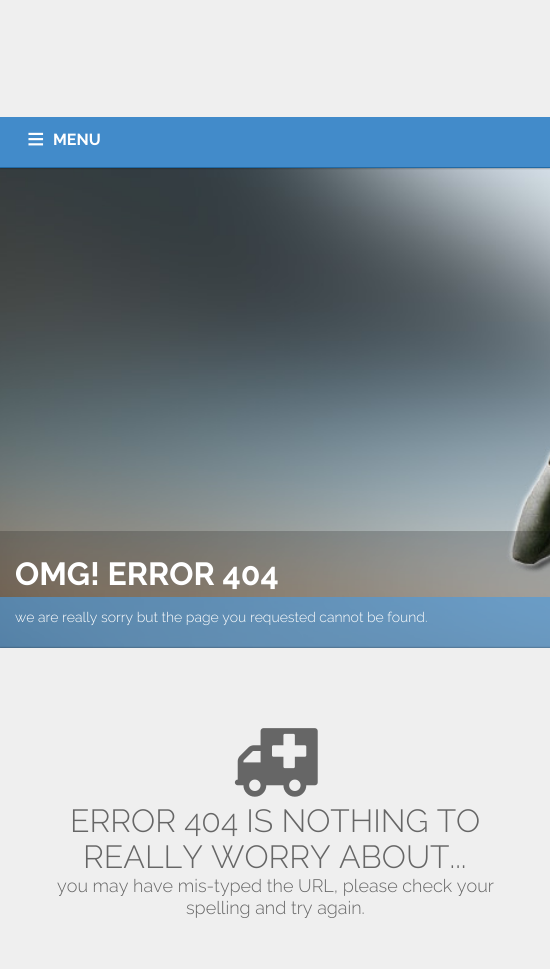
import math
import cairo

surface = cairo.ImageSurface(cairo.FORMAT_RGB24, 550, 969)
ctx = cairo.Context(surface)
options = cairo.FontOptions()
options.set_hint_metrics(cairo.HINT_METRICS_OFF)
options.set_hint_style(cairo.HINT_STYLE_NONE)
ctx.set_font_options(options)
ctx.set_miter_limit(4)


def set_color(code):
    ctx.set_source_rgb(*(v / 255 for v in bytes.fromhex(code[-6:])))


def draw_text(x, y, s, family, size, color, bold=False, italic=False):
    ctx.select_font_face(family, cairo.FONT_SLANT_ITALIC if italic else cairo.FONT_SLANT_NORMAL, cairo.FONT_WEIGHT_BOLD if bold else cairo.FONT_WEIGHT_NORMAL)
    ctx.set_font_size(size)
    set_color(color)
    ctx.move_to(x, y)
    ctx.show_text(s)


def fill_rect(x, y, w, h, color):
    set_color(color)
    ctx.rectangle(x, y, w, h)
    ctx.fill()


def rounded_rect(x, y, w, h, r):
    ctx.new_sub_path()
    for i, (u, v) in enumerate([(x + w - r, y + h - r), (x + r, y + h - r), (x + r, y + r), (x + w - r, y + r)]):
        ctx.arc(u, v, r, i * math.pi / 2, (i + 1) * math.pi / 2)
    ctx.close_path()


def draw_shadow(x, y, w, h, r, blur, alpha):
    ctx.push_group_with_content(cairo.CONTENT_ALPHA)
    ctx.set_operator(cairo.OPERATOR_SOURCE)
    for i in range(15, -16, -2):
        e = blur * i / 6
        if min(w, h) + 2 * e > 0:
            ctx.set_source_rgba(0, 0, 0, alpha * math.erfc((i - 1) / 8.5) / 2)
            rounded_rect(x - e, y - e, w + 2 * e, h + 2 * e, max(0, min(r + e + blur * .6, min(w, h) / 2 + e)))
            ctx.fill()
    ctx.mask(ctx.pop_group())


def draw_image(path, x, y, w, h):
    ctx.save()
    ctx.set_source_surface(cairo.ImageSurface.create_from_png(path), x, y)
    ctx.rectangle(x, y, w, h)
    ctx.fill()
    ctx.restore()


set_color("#efefef")
ctx.paint()
draw_image("assets/img1.png", 0, 168, 550, 480)
ctx.save()
ctx.rectangle(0, 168, 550, 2)
ctx.clip()
set_color("#000000")
draw_shadow(0, 0, 550, 168, 0, 1, 0.5)
ctx.restore()
fill_rect(0, 117, 550, 50, "#428bca")
fill_rect(0, 167, 550, 1, "#216aa5")
draw_text(27, 149, "≡", "Liberation Sans", 30, "#ffffff", bold=True)
draw_text(53, 145, "MENU", "Raleway", 16, "#ffffff", bold=True)
ctx.set_source_rgba(0, 0, 0, 0.2)
ctx.rectangle(0, 531, 550, 66)
ctx.fill()
draw_text(15, 585, "OMG! ERROR 404", "Raleway", 32, "#ffffff", bold=True)
ctx.set_source_rgba(0.259, 0.545, 0.792, 0.7)
ctx.rectangle(0, 597, 550, 51)
ctx.fill()
draw_text(15, 622, "we are really sorry but the page you requested cannot be found.", "Raleway Light", 14, "#ffffff")
ctx.save()
ctx.rectangle(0, 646, 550, 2)
ctx.clip()
set_color("#000000")
draw_shadow(0, 648, 550, 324, 0, 1, 0.5)
ctx.restore()
draw_image("assets/img2.png", 234, 728, 84, 69)
draw_text(70, 832, "ERROR 404 IS NOTHING TO", "Raleway Light", 32, "#666666")
draw_text(83, 868, "REALLY WORRY ABOUT...", "Raleway Light", 32, "#666666")
draw_text(57, 892, "you may have mis-typed the URL, please check your", "Raleway Light", 18, "#666666")
draw_text(186, 914, "spelling and try again.", "Raleway Light", 18, "#666666")
surface.write_to_png("output.png")
